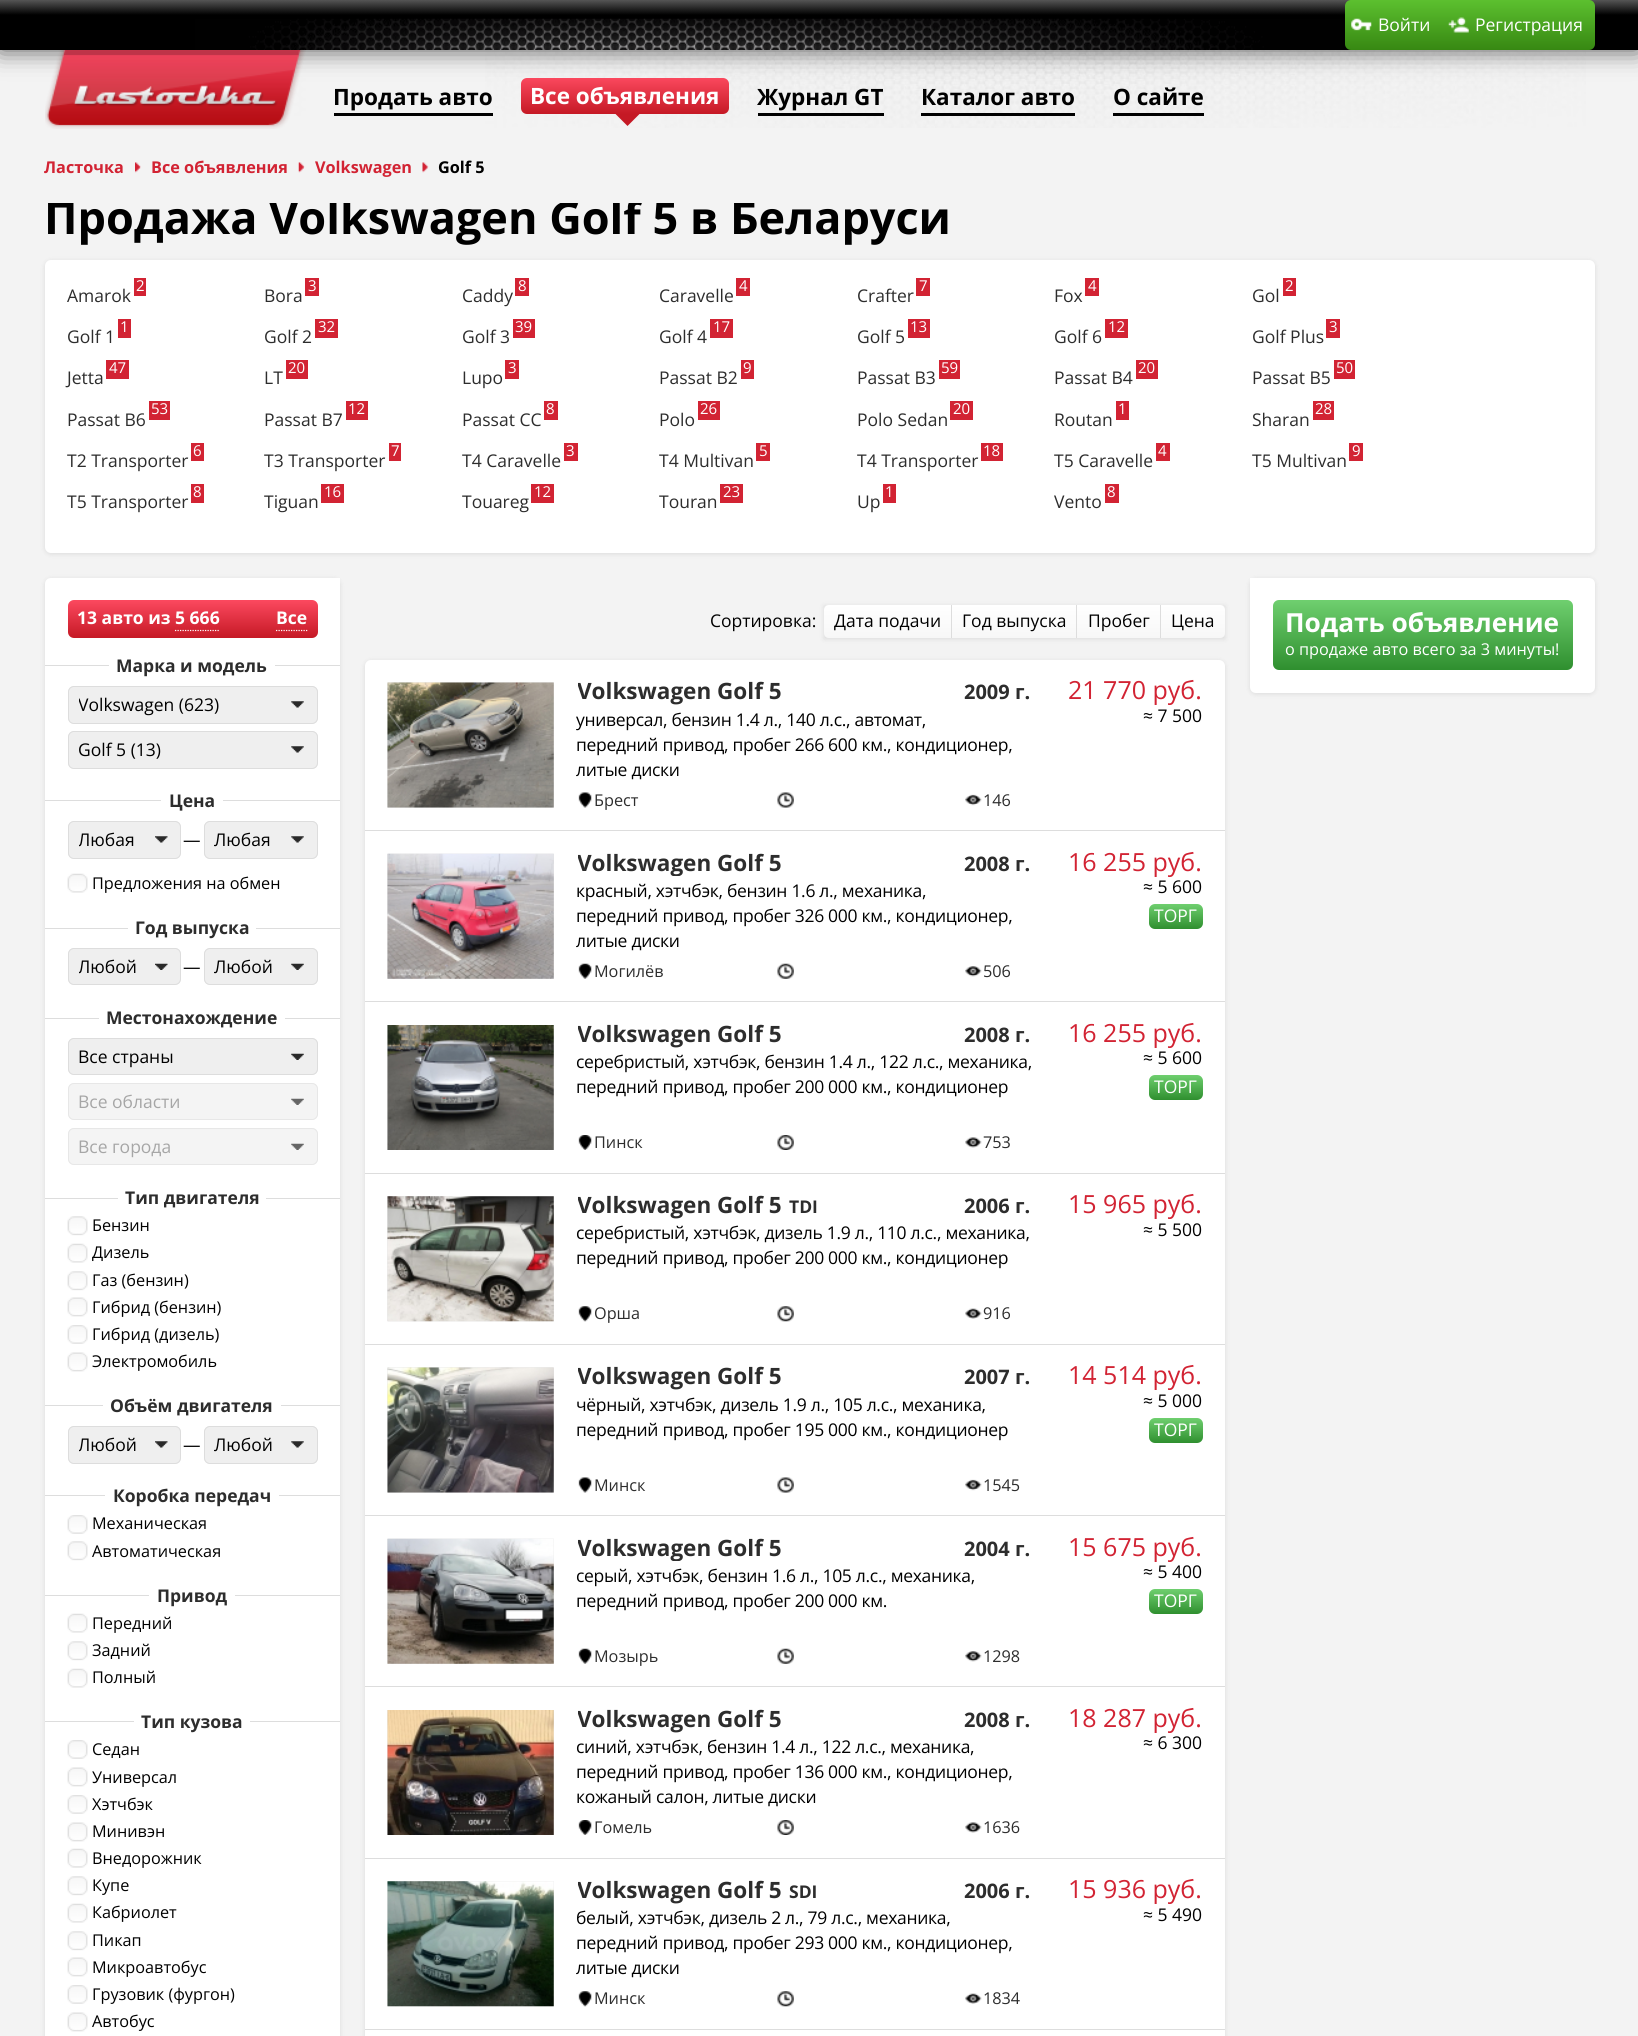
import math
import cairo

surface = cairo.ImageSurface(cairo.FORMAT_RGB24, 1638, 2036)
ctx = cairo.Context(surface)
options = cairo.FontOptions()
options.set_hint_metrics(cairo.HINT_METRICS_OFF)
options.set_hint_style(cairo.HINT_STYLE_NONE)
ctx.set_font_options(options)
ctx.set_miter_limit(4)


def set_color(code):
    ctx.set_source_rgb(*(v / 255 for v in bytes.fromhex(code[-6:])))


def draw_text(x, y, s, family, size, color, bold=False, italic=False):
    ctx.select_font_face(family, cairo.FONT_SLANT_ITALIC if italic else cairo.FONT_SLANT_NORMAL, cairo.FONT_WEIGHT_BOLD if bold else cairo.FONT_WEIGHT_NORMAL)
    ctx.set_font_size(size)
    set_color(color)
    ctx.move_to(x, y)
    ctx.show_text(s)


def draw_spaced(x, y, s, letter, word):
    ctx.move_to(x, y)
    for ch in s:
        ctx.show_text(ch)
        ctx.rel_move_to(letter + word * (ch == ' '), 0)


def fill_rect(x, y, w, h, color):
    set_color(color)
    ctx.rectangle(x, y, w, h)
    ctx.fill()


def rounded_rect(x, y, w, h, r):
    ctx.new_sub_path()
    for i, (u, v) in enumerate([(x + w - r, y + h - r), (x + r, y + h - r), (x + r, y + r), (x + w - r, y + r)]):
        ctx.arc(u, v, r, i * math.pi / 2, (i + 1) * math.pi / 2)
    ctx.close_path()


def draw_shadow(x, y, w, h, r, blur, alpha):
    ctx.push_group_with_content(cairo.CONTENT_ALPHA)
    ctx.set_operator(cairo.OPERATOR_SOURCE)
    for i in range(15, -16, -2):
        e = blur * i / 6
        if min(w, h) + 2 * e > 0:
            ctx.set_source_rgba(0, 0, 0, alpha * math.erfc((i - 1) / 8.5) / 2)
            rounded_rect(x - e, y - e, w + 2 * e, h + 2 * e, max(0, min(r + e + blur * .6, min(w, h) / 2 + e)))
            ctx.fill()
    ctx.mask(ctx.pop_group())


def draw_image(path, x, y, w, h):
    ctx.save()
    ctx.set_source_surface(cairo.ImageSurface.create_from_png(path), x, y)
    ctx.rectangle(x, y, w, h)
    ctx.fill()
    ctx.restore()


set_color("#f3f3f3")
ctx.paint()
draw_image("assets/img4.png", 485, 50, 1101, 78)
set_color("#555555")
draw_shadow(0, 0, 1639, 50, 0, 12.5, 1)
draw_image("assets/img1.png", 0, 0, 1638, 50)
gradient = cairo.LinearGradient(1470, 0, 1470, 50)
gradient.add_color_stop_rgba(0, 0.361, 0.753, 0.184, 1)
gradient.add_color_stop_rgba(1, 0.216, 0.533, 0.071, 1)
ctx.set_source(gradient)
rounded_rect(1345, 0, 250, 50, 6)
ctx.fill()
draw_image("assets/img2.png", 1351, 18, 21, 13)
draw_text(1378, 31, "Войти", "Open Sans", 17.5, "#ffffff")
draw_image("assets/img3.png", 1448, 17, 21, 16)
draw_text(1475, 31, "Регистрация", "Open Sans", 17.5, "#ffffff")
draw_image("assets/img5.png", 45, 50, 261, 79)
fill_rect(334, 113, 159, 3, "#000000")
draw_text(333, 105, "Продать авто", "Open Sans", 22.5, "#000000", bold=True)
set_color("#c51925")
ctx.new_path()
ctx.move_to(615, 113.5)
ctx.line_to(627.5, 101.5)
ctx.line_to(640, 113.5)
ctx.line_to(627.5, 126)
ctx.close_path()
ctx.fill()
gradient = cairo.LinearGradient(625, 77, 625, 114)
gradient.add_color_stop_rgba(0, 0.988, 0.286, 0.373, 1)
gradient.add_color_stop_rgba(1, 0.773, 0.098, 0.145, 1)
ctx.set_source(gradient)
rounded_rect(521, 78, 208, 36, 6)
ctx.fill()
draw_text(530, 104, "Все объявления", "Open Sans", 22.5, "#ffffff", bold=True)
fill_rect(758, 113, 126, 3, "#000000")
draw_text(757, 105, "Журнал GT", "Open Sans", 22.5, "#000000", bold=True)
fill_rect(921, 113, 154, 3, "#000000")
draw_text(921, 105, "Каталог авто", "Open Sans", 22.5, "#000000", bold=True)
fill_rect(1113, 113, 91, 3, "#000000")
draw_text(1113, 105, "О сайте", "Open Sans", 22.5, "#000000", bold=True)
draw_text(44, 173, "Ласточка", "Open Sans", 16.25, "#d22333", bold=True)
draw_image("assets/img6.png", 135, 162, 6, 11)
draw_text(151, 173, "Все объявления", "Open Sans", 16.25, "#d22333", bold=True)
draw_image("assets/img7.png", 298, 162, 7, 11)
draw_text(315, 173, "Volkswagen", "Open Sans", 16.25, "#d22333", bold=True)
draw_image("assets/img8.png", 422, 162, 7, 11)
draw_text(438, 173, "Golf 5", "Open Sans", 16.25, "#000000", bold=True)
ctx.save()
ctx.rectangle(40, 203, 1560, 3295)
ctx.clip()
draw_text(44, 234, "Продажа Volkswagen Golf 5 в Беларуси", "Open Sans", 45, "#000000", bold=True)
ctx.restore()
set_color("#000000")
draw_shadow(45, 261, 1550, 293, 6, 2.5, 0.1)
set_color("#ffffff")
rounded_rect(45, 260, 1550, 293, 6)
ctx.fill()
fill_rect(134, 278, 12, 18, "#d22333")
draw_text(136, 291, "2", "Open Sans", 15, "#ffffff")
draw_text(67, 302, "Amarok", "Open Sans", 17.5, "#2d2d2d")
fill_rect(305, 278, 14, 18, "#d22333")
draw_text(308, 291, "3", "Open Sans", 15, "#ffffff")
draw_text(264, 302, "Bora", "Open Sans", 17.5, "#2d2d2d")
fill_rect(515, 278, 14, 18, "#d22333")
draw_text(518, 291, "8", "Open Sans", 15, "#ffffff")
draw_text(462, 302, "Caddy", "Open Sans", 17.5, "#2d2d2d")
fill_rect(736, 278, 14, 18, "#d22333")
draw_text(739, 291, "4", "Open Sans", 15, "#ffffff")
draw_text(659, 302, "Caravelle", "Open Sans", 17.5, "#2d2d2d")
fill_rect(916, 278, 14, 18, "#d22333")
draw_text(919, 291, "7", "Open Sans", 15, "#ffffff")
draw_text(857, 302, "Crafter", "Open Sans", 17.5, "#2d2d2d")
fill_rect(1085, 278, 14, 18, "#d22333")
draw_text(1088, 291, "4", "Open Sans", 15, "#ffffff")
draw_text(1054, 302, "Fox", "Open Sans", 17.5, "#2d2d2d")
fill_rect(1283, 278, 13, 18, "#d22333")
draw_text(1285, 291, "2", "Open Sans", 15, "#ffffff")
draw_text(1252, 302, "Gol", "Open Sans", 17.5, "#2d2d2d")
fill_rect(118, 319, 13, 19, "#d22333")
draw_text(120, 332, "1", "Open Sans", 15, "#ffffff")
draw_text(67, 343, "Golf 1", "Open Sans", 17.5, "#2d2d2d")
fill_rect(315, 319, 23, 19, "#d22333")
draw_text(318, 332, "32", "Open Sans", 15, "#ffffff")
draw_text(264, 343, "Golf 2", "Open Sans", 17.5, "#2d2d2d")
fill_rect(513, 319, 22, 19, "#d22333")
draw_text(515, 332, "39", "Open Sans", 15, "#ffffff")
draw_text(462, 343, "Golf 3", "Open Sans", 17.5, "#2d2d2d")
fill_rect(710, 319, 23, 19, "#d22333")
draw_text(713, 332, "17", "Open Sans", 15, "#ffffff")
draw_text(659, 343, "Golf 4", "Open Sans", 17.5, "#2d2d2d")
fill_rect(908, 319, 22, 19, "#d22333")
draw_text(910, 332, "13", "Open Sans", 15, "#ffffff")
draw_text(857, 343, "Golf 5", "Open Sans", 17.5, "#2d2d2d")
fill_rect(1105, 319, 23, 19, "#d22333")
draw_text(1108, 332, "12", "Open Sans", 15, "#ffffff")
draw_text(1054, 343, "Golf 6", "Open Sans", 17.5, "#2d2d2d")
fill_rect(1326, 319, 14, 19, "#d22333")
draw_text(1329, 332, "3", "Open Sans", 15, "#ffffff")
draw_text(1252, 343, "Golf Plus", "Open Sans", 17.5, "#2d2d2d")
fill_rect(106, 360, 23, 19, "#d22333")
draw_text(109, 373, "47", "Open Sans", 15, "#ffffff")
draw_text(67, 384, "Jetta", "Open Sans", 17.5, "#2d2d2d")
fill_rect(286, 360, 22, 19, "#d22333")
draw_text(288, 373, "20", "Open Sans", 15, "#ffffff")
draw_text(264, 384, "LT", "Open Sans", 17.5, "#2d2d2d")
fill_rect(505, 360, 14, 19, "#d22333")
draw_text(508, 373, "3", "Open Sans", 15, "#ffffff")
draw_text(462, 384, "Lupo", "Open Sans", 17.5, "#2d2d2d")
fill_rect(741, 360, 13, 19, "#d22333")
draw_text(743, 373, "9", "Open Sans", 15, "#ffffff")
draw_text(659, 384, "Passat B2", "Open Sans", 17.5, "#2d2d2d")
fill_rect(939, 360, 21, 19, "#d22333")
draw_text(941, 373, "59", "Open Sans", 15, "#ffffff")
draw_text(857, 384, "Passat B3", "Open Sans", 17.5, "#2d2d2d")
fill_rect(1136, 360, 22, 19, "#d22333")
draw_text(1138, 373, "20", "Open Sans", 15, "#ffffff")
draw_text(1054, 384, "Passat B4", "Open Sans", 17.5, "#2d2d2d")
fill_rect(1334, 360, 21, 19, "#d22333")
draw_text(1336, 373, "50", "Open Sans", 15, "#ffffff")
draw_text(1252, 384, "Passat B5", "Open Sans", 17.5, "#2d2d2d")
fill_rect(149, 401, 21, 19, "#d22333")
draw_text(151, 414, "53", "Open Sans", 15, "#ffffff")
draw_text(67, 426, "Passat B6", "Open Sans", 17.5, "#2d2d2d")
fill_rect(346, 401, 22, 19, "#d22333")
draw_text(348, 414, "12", "Open Sans", 15, "#ffffff")
draw_text(264, 426, "Passat B7", "Open Sans", 17.5, "#2d2d2d")
fill_rect(544, 401, 14, 19, "#d22333")
draw_text(546, 414, "8", "Open Sans", 15, "#ffffff")
draw_text(462, 426, "Passat CC", "Open Sans", 17.5, "#2d2d2d")
fill_rect(698, 401, 22, 19, "#d22333")
draw_text(700, 414, "26", "Open Sans", 15, "#ffffff")
draw_text(659, 426, "Polo", "Open Sans", 17.5, "#2d2d2d")
fill_rect(950, 401, 23, 19, "#d22333")
draw_text(953, 414, "20", "Open Sans", 15, "#ffffff")
draw_text(857, 426, "Polo Sedan", "Open Sans", 17.5, "#2d2d2d")
fill_rect(1116, 401, 13, 19, "#d22333")
draw_text(1118, 414, "1", "Open Sans", 15, "#ffffff")
draw_text(1054, 426, "Routan", "Open Sans", 17.5, "#2d2d2d")
fill_rect(1313, 401, 21, 19, "#d22333")
draw_text(1315, 414, "28", "Open Sans", 15, "#ffffff")
draw_text(1252, 426, "Sharan", "Open Sans", 17.5, "#2d2d2d")
fill_rect(191, 443, 13, 18, "#d22333")
draw_text(193, 456, "6", "Open Sans", 15, "#ffffff")
draw_text(67, 467, "T2 Transporter", "Open Sans", 17.5, "#2d2d2d")
fill_rect(389, 443, 12, 18, "#d22333")
draw_text(391, 456, "7", "Open Sans", 15, "#ffffff")
draw_text(264, 467, "T3 Transporter", "Open Sans", 17.5, "#2d2d2d")
fill_rect(564, 443, 14, 18, "#d22333")
draw_text(566, 456, "3", "Open Sans", 15, "#ffffff")
draw_text(462, 467, "T4 Caravelle", "Open Sans", 17.5, "#2d2d2d")
fill_rect(756, 443, 14, 18, "#d22333")
draw_text(759, 456, "5", "Open Sans", 15, "#ffffff")
draw_text(659, 467, "T4 Multivan", "Open Sans", 17.5, "#2d2d2d")
fill_rect(981, 443, 22, 18, "#d22333")
draw_text(983, 456, "18", "Open Sans", 15, "#ffffff")
draw_text(857, 467, "T4 Transporter", "Open Sans", 17.5, "#2d2d2d")
fill_rect(1156, 443, 14, 18, "#d22333")
draw_text(1158, 456, "4", "Open Sans", 15, "#ffffff")
draw_text(1054, 467, "T5 Caravelle", "Open Sans", 17.5, "#2d2d2d")
fill_rect(1349, 443, 14, 18, "#d22333")
draw_text(1352, 456, "9", "Open Sans", 15, "#ffffff")
draw_text(1252, 467, "T5 Multivan", "Open Sans", 17.5, "#2d2d2d")
fill_rect(191, 484, 13, 19, "#d22333")
draw_text(193, 497, "8", "Open Sans", 15, "#ffffff")
draw_text(67, 508, "T5 Transporter", "Open Sans", 17.5, "#2d2d2d")
fill_rect(321, 484, 23, 19, "#d22333")
draw_text(324, 497, "16", "Open Sans", 15, "#ffffff")
draw_text(264, 508, "Tiguan", "Open Sans", 17.5, "#2d2d2d")
fill_rect(531, 484, 23, 19, "#d22333")
draw_text(534, 497, "12", "Open Sans", 15, "#ffffff")
draw_text(462, 508, "Touareg", "Open Sans", 17.5, "#2d2d2d")
fill_rect(720, 484, 23, 19, "#d22333")
draw_text(723, 497, "23", "Open Sans", 15, "#ffffff")
draw_text(659, 508, "Touran", "Open Sans", 17.5, "#2d2d2d")
fill_rect(883, 484, 13, 19, "#d22333")
draw_text(885, 497, "1", "Open Sans", 15, "#ffffff")
draw_text(857, 508, "Up", "Open Sans", 17.5, "#2d2d2d")
fill_rect(1105, 484, 14, 19, "#d22333")
draw_text(1107, 497, "8", "Open Sans", 15, "#ffffff")
draw_text(1054, 508, "Vento", "Open Sans", 17.5, "#2d2d2d")
set_color("#000000")
draw_shadow(45, 579, 295, 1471, 6, 2.5, 0.1)
set_color("#ffffff")
ctx.new_path()
ctx.move_to(51, 578)
ctx.line_to(340, 578)
ctx.line_to(340, 2036)
ctx.curve_to(340, 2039.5, 337.5, 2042, 334, 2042)
ctx.line_to(51, 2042)
ctx.curve_to(47.5, 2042, 45, 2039.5, 45, 2036)
ctx.line_to(45, 584)
ctx.curve_to(45, 580.5, 47.5, 578, 51, 578)
ctx.close_path()
ctx.fill()
gradient = cairo.LinearGradient(193, 600, 193, 638)
gradient.add_color_stop_rgba(0, 0.988, 0.286, 0.373, 1)
gradient.add_color_stop_rgba(1, 0.773, 0.098, 0.145, 1)
ctx.set_source(gradient)
rounded_rect(68, 600, 250, 38, 6)
ctx.fill()
draw_text(77, 624, "13 авто из 5 666", "Open Sans", 17.5, "#ffffff", bold=True)
ctx.new_path()
ctx.move_to(175, 630.5)
ctx.line_to(220, 630.5)
ctx.set_line_width(1.2)
ctx.set_dash([1.25, 1.25])
ctx.stroke()
draw_text(276, 624, "Все", "Open Sans", 17.5, "#ffffff", bold=True)
ctx.new_path()
ctx.move_to(276, 630.5)
ctx.line_to(307.5, 630.5)
ctx.stroke()
fill_rect(45, 665, 295, 1, "#dddddd")
fill_rect(109, 665, 166, 1, "#ffffff")
draw_text(116, 672, "Марка и модель", "Open Sans", 17.5, "#2d2d2d", bold=True)
set_color("#efefef")
rounded_rect(68, 686, 250, 38, 6)
ctx.fill()
draw_image("assets/img9.png", 291, 701, 13, 7)
rounded_rect(68.5, 686.5, 249, 37, 5.5)
set_color("#dddddd")
ctx.set_line_width(1)
ctx.set_dash([])
ctx.stroke()
ctx.save()
ctx.rectangle(79, 691, 205, 27)
ctx.clip()
draw_text(78, 711, "Volkswagen (623)", "Open Sans", 17.5, "#000000")
ctx.restore()
set_color("#efefef")
rounded_rect(68, 731, 250, 38, 6)
ctx.fill()
draw_image("assets/img9.png", 291, 746, 13, 7)
rounded_rect(68.5, 731.5, 249, 37, 5.5)
set_color("#dddddd")
ctx.stroke()
draw_text(78, 756, "Golf 5 (13)", "Open Sans", 17.5, "#000000")
fill_rect(45, 800, 295, 1, "#dddddd")
fill_rect(161, 800, 62, 1, "#ffffff")
draw_text(169, 807, "Цена", "Open Sans", 17.5, "#2d2d2d", bold=True)
set_color("#efefef")
rounded_rect(68, 821, 113, 38, 6)
ctx.fill()
draw_image("assets/img10.png", 155, 836, 13, 7)
rounded_rect(68.5, 821.5, 112, 37, 5.5)
set_color("#dddddd")
ctx.stroke()
ctx.save()
ctx.rectangle(79, 826, 69, 27)
ctx.clip()
draw_text(78, 846, "Любая", "Open Sans", 17.5, "#000000")
ctx.restore()
draw_text(183, 846, "—", "Open Sans", 17.5, "#000000")
set_color("#efefef")
rounded_rect(204, 821, 114, 38, 6)
ctx.fill()
draw_image("assets/img9.png", 291, 836, 13, 7)
rounded_rect(204.5, 821.5, 113, 37, 5.5)
set_color("#dddddd")
ctx.stroke()
draw_text(214, 846, "Любая", "Open Sans", 17.5, "#000000")
draw_image("assets/img11.png", 67, 873, 21, 20)
draw_text(92, 889, "Предложения на обмен", "Open Sans", 16.25, "#000000")
fill_rect(45, 928, 295, 1, "#dddddd")
fill_rect(128, 928, 128, 1, "#ffffff")
draw_text(135, 934, "Год выпуска", "Open Sans", 17.5, "#2d2d2d", bold=True)
set_color("#efefef")
rounded_rect(68, 948, 113, 37, 6)
ctx.fill()
draw_image("assets/img12.png", 155, 963, 13, 7)
rounded_rect(68.5, 948.5, 112, 36, 5.5)
set_color("#dddddd")
ctx.stroke()
ctx.save()
ctx.rectangle(79, 953, 69, 26)
ctx.clip()
draw_text(78, 973, "Любой", "Open Sans", 17.5, "#000000")
ctx.restore()
draw_text(183, 973, "—", "Open Sans", 17.5, "#000000")
set_color("#efefef")
rounded_rect(204, 948, 114, 37, 6)
ctx.fill()
draw_image("assets/img13.png", 291, 963, 13, 7)
rounded_rect(204.5, 948.5, 113, 36, 5.5)
set_color("#dddddd")
ctx.stroke()
draw_text(214, 973, "Любой", "Open Sans", 17.5, "#000000")
fill_rect(45, 1018, 295, 1, "#dddddd")
fill_rect(99, 1018, 186, 1, "#ffffff")
draw_text(106, 1024, "Местонахождение", "Open Sans", 17.5, "#2d2d2d", bold=True)
set_color("#efefef")
rounded_rect(68, 1038, 250, 37, 6)
ctx.fill()
draw_image("assets/img13.png", 291, 1053, 13, 7)
rounded_rect(68.5, 1038.5, 249, 36, 5.5)
set_color("#dddddd")
ctx.stroke()
draw_text(78, 1063, "Все страны", "Open Sans", 17.5, "#000000")
set_color("#f4f4f4")
rounded_rect(68, 1083, 250, 37, 6)
ctx.fill()
draw_image("assets/img14.png", 291, 1098, 13, 7)
rounded_rect(68.5, 1083.5, 249, 36, 5.5)
set_color("#e7e7e7")
ctx.stroke()
draw_text(78, 1108, "Все области", "Open Sans", 17.5, "#a6a6a6")
set_color("#f4f4f4")
rounded_rect(68, 1128, 250, 37, 6)
ctx.fill()
draw_image("assets/img14.png", 291, 1143, 13, 7)
rounded_rect(68.5, 1128.5, 249, 36, 5.5)
set_color("#e7e7e7")
ctx.stroke()
draw_text(78, 1153, "Все города", "Open Sans", 17.5, "#a6a6a6")
fill_rect(45, 1198, 295, 1, "#dddddd")
fill_rect(118, 1198, 148, 1, "#ffffff")
draw_text(125, 1204, "Тип двигателя", "Open Sans", 17.5, "#2d2d2d", bold=True)
draw_image("assets/img15.png", 67, 1216, 21, 20)
draw_text(92, 1231, "Бензин", "Open Sans", 16.25, "#000000")
draw_image("assets/img11.png", 67, 1243, 21, 20)
draw_text(92, 1258, "Дизель", "Open Sans", 16.25, "#000000")
draw_image("assets/img15.png", 67, 1271, 21, 20)
draw_text(92, 1286, "Газ (бензин)", "Open Sans", 16.25, "#000000")
draw_image("assets/img16.png", 67, 1297, 21, 20)
draw_text(92, 1313, "Гибрид (бензин)", "Open Sans", 16.25, "#000000")
draw_image("assets/img17.png", 67, 1325, 21, 19)
draw_text(92, 1340, "Гибрид (дизель)", "Open Sans", 16.25, "#000000")
draw_image("assets/img16.png", 67, 1352, 21, 20)
draw_text(92, 1367, "Электромобиль", "Open Sans", 16.25, "#000000")
fill_rect(45, 1405, 295, 1, "#dddddd")
fill_rect(103, 1405, 178, 1, "#ffffff")
draw_text(110, 1412, "Объём двигателя", "Open Sans", 17.5, "#2d2d2d", bold=True)
set_color("#efefef")
rounded_rect(68, 1426, 113, 38, 6)
ctx.fill()
draw_image("assets/img10.png", 155, 1441, 13, 7)
rounded_rect(68.5, 1426.5, 112, 37, 5.5)
set_color("#dddddd")
ctx.stroke()
ctx.save()
ctx.rectangle(79, 1431, 69, 27)
ctx.clip()
draw_text(78, 1451, "Любой", "Open Sans", 17.5, "#000000")
ctx.restore()
draw_text(183, 1451, "—", "Open Sans", 17.5, "#000000")
set_color("#efefef")
rounded_rect(204, 1426, 114, 38, 6)
ctx.fill()
draw_image("assets/img9.png", 291, 1441, 13, 7)
rounded_rect(204.5, 1426.5, 113, 37, 5.5)
set_color("#dddddd")
ctx.stroke()
draw_text(214, 1451, "Любой", "Open Sans", 17.5, "#000000")
fill_rect(45, 1495, 295, 1, "#dddddd")
fill_rect(105, 1495, 174, 1, "#ffffff")
draw_text(113, 1502, "Коробка передач", "Open Sans", 17.5, "#2d2d2d", bold=True)
draw_image("assets/img17.png", 67, 1515, 21, 19)
draw_text(92, 1529, "Механическая", "Open Sans", 16.25, "#000000")
draw_image("assets/img15.png", 67, 1541, 21, 20)
draw_text(92, 1557, "Автоматическая", "Open Sans", 16.25, "#000000")
fill_rect(45, 1595, 295, 1, "#dddddd")
fill_rect(149, 1595, 86, 1, "#ffffff")
draw_text(157, 1602, "Привод", "Open Sans", 17.5, "#2d2d2d", bold=True)
draw_image("assets/img11.png", 67, 1613, 21, 20)
draw_text(92, 1629, "Передний", "Open Sans", 16.25, "#000000")
draw_image("assets/img15.png", 67, 1641, 21, 20)
draw_text(92, 1656, "Задний", "Open Sans", 16.25, "#000000")
draw_image("assets/img11.png", 67, 1668, 21, 20)
draw_text(92, 1683, "Полный", "Open Sans", 16.25, "#000000")
fill_rect(45, 1721, 295, 1, "#dddddd")
fill_rect(134, 1721, 116, 1, "#ffffff")
draw_text(141, 1728, "Тип кузова", "Open Sans", 17.5, "#2d2d2d", bold=True)
draw_image("assets/img17.png", 67, 1740, 21, 19)
draw_text(92, 1755, "Седан", "Open Sans", 16.25, "#000000")
draw_image("assets/img16.png", 67, 1767, 21, 20)
draw_text(92, 1783, "Универсал", "Open Sans", 16.25, "#000000")
draw_image("assets/img17.png", 67, 1795, 21, 19)
draw_text(92, 1810, "Хэтчбэк", "Open Sans", 16.25, "#000000")
draw_image("assets/img16.png", 67, 1822, 21, 20)
draw_text(92, 1837, "Минивэн", "Open Sans", 16.25, "#000000")
draw_image("assets/img18.png", 67, 1848, 21, 20)
draw_text(92, 1864, "Внедорожник", "Open Sans", 16.25, "#000000")
draw_image("assets/img15.png", 67, 1876, 21, 20)
draw_text(92, 1891, "Купе", "Open Sans", 16.25, "#000000")
draw_image("assets/img11.png", 67, 1903, 21, 20)
draw_text(92, 1918, "Кабриолет", "Open Sans", 16.25, "#000000")
draw_image("assets/img15.png", 67, 1931, 21, 20)
draw_text(92, 1946, "Пикап", "Open Sans", 16.25, "#000000")
draw_image("assets/img16.png", 67, 1957, 21, 20)
draw_text(92, 1973, "Микроавтобус", "Open Sans", 16.25, "#000000")
draw_image("assets/img17.png", 67, 1985, 21, 19)
draw_text(92, 2000, "Грузовик (фургон)", "Open Sans", 16.25, "#000000")
draw_image("assets/img16.png", 67, 2012, 21, 20)
draw_text(92, 2027, "Автобус", "Open Sans", 16.25, "#000000")
draw_text(710, 627, "Сортировка:", "Open Sans", 17.5, "#000000")
set_color("#000000")
draw_shadow(824, 606, 401, 33, 0, 2.5, 0.1)
gradient = cairo.LinearGradient(888, 605, 888, 638)
gradient.add_color_stop_rgba(0, 1, 1, 1, 1)
gradient.add_color_stop_rgba(1, 0.969, 0.969, 0.969, 1)
ctx.set_source(gradient)
ctx.new_path()
ctx.move_to(829, 605)
ctx.line_to(953, 605)
ctx.line_to(953, 638)
ctx.line_to(829, 638)
ctx.curve_to(826, 638, 824, 636, 824, 633)
ctx.line_to(824, 610)
ctx.curve_to(824, 607, 826, 605, 829, 605)
ctx.close_path()
ctx.fill()
fill_rect(951, 605, 1, 33, "#dddddd")
draw_text(834, 627, "Дата подачи", "Open Sans", 17.5, "#000000")
gradient = cairo.LinearGradient(1014, 605, 1014, 638)
gradient.add_color_stop_rgba(0, 1, 1, 1, 1)
gradient.add_color_stop_rgba(1, 0.969, 0.969, 0.969, 1)
ctx.set_source(gradient)
ctx.rectangle(953, 605, 125, 33)
ctx.fill()
fill_rect(1076, 605, 1, 33, "#dddddd")
draw_text(962, 627, "Год выпуска", "Open Sans", 17.5, "#000000")
gradient = cairo.LinearGradient(1119, 605, 1119, 638)
gradient.add_color_stop_rgba(0, 1, 1, 1, 1)
gradient.add_color_stop_rgba(1, 0.969, 0.969, 0.969, 1)
ctx.set_source(gradient)
ctx.rectangle(1078, 605, 82, 33)
ctx.fill()
fill_rect(1160, 605, 1, 33, "#dddddd")
draw_text(1088, 627, "Пробег", "Open Sans", 17.5, "#000000")
gradient = cairo.LinearGradient(1193, 605, 1193, 638)
gradient.add_color_stop_rgba(0, 1, 1, 1, 1)
gradient.add_color_stop_rgba(1, 0.969, 0.969, 0.969, 1)
ctx.set_source(gradient)
ctx.new_path()
ctx.move_to(1161, 605)
ctx.line_to(1220, 605)
ctx.curve_to(1223, 605, 1225, 607, 1225, 610)
ctx.line_to(1225, 633)
ctx.curve_to(1225, 636, 1223, 638, 1220, 638)
ctx.line_to(1161, 638)
ctx.close_path()
ctx.fill()
draw_text(1171, 627, "Цена", "Open Sans", 17.5, "#000000")
set_color("#000000")
draw_shadow(365, 661, 860, 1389, 6, 2.5, 0.1)
set_color("#ffffff")
rounded_rect(365, 660, 860, 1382, 6)
ctx.fill()
fill_rect(365, 830, 860, 1, "#dddddd")
draw_image("assets/img19.png", 387, 682, 167, 126)
draw_image("assets/img20.png", 387, 682, 167, 126)
ctx.save()
ctx.rectangle(578, 679, 375, 26)
ctx.clip()
draw_text(577, 699, "Volkswagen Golf 5", "Open Sans", 22.5, "#2d2d2d", bold=True)
ctx.restore()
draw_text(964, 699, "2009 г.", "Open Sans", 20, "#2d2d2d", bold=True)
ctx.select_font_face("Open Sans")
ctx.set_font_size(17.5)
set_color("#000000")
draw_spaced(576, 726, "универсал, бензин 1.4 л., 140 л.с., автомат,", -0.3, 0)
draw_spaced(576, 751, "передний привод, пробег 266 600 км., кондиционер,", -0.3, 0)
draw_spaced(576, 776, "литые диски", -0.3, 0)
draw_image("assets/img21.png", 578, 792, 14, 16)
draw_text(594, 806, "Брест", "Open Sans", 16.25, "#2d2d2d")
draw_image("assets/img22.png", 777, 792, 17, 16)
draw_image("assets/img23.png", 965, 794, 17, 12)
draw_text(983, 806, "146", "Open Sans", 16.25, "#2d2d2d")
draw_text(1068, 699, "21 770 руб.", "Open Sans", 25, "#d22333")
draw_text(1143, 722, "≈ 7 500", "Open Sans", 17.5, "#000000")
fill_rect(365, 1001, 860, 1, "#dddddd")
draw_image("assets/img24.png", 387, 853, 167, 126)
draw_image("assets/img25.png", 387, 853, 167, 126)
ctx.save()
ctx.rectangle(578, 850, 375, 26)
ctx.clip()
draw_text(577, 871, "Volkswagen Golf 5", "Open Sans", 22.5, "#2d2d2d", bold=True)
ctx.restore()
draw_text(964, 871, "2008 г.", "Open Sans", 20, "#2d2d2d", bold=True)
ctx.select_font_face("Open Sans")
ctx.set_font_size(17.5)
set_color("#000000")
draw_spaced(576, 897, "красный, хэтчбэк, бензин 1.6 л., механика,", -0.3, 0)
draw_spaced(576, 922, "передний привод, пробег 326 000 км., кондиционер,", -0.3, 0)
draw_spaced(576, 947, "литые диски", -0.3, 0)
draw_image("assets/img26.png", 578, 963, 14, 16)
draw_text(594, 977, "Могилёв", "Open Sans", 16.25, "#2d2d2d")
draw_image("assets/img27.png", 777, 963, 17, 16)
draw_image("assets/img28.png", 965, 966, 17, 11)
draw_text(983, 977, "506", "Open Sans", 16.25, "#2d2d2d")
draw_text(1068, 871, "16 255 руб.", "Open Sans", 25, "#d22333")
draw_text(1143, 893, "≈ 5 600", "Open Sans", 17.5, "#000000")
gradient = cairo.LinearGradient(1176, 904, 1176, 929)
gradient.add_color_stop_rgba(0, 0.435, 0.812, 0.435, 1)
gradient.add_color_stop_rgba(1, 0.184, 0.561, 0.184, 1)
ctx.set_source(gradient)
rounded_rect(1149, 904, 54, 25, 6)
ctx.fill()
draw_text(1154, 922, "ТОРГ", "Open Sans", 17.5, "#ffffff")
fill_rect(365, 1173, 860, 1, "#dddddd")
draw_image("assets/img29.png", 387, 1025, 167, 125)
draw_image("assets/img30.png", 387, 1025, 167, 125)
ctx.save()
ctx.rectangle(578, 1021, 375, 27)
ctx.clip()
draw_text(577, 1042, "Volkswagen Golf 5", "Open Sans", 22.5, "#2d2d2d", bold=True)
ctx.restore()
draw_text(964, 1042, "2008 г.", "Open Sans", 20, "#2d2d2d", bold=True)
ctx.select_font_face("Open Sans")
ctx.set_font_size(17.5)
set_color("#000000")
draw_spaced(576, 1068, "серебристый, хэтчбэк, бензин 1.4 л., 122 л.с., механика,", -0.3, 0)
draw_spaced(576, 1093, "передний привод, пробег 200 000 км., кондиционер", -0.3, 0)
draw_image("assets/img31.png", 578, 1135, 14, 15)
draw_text(594, 1148, "Пинск", "Open Sans", 16.25, "#2d2d2d")
draw_image("assets/img32.png", 777, 1135, 17, 15)
draw_image("assets/img33.png", 965, 1137, 17, 11)
draw_text(983, 1148, "753", "Open Sans", 16.25, "#2d2d2d")
draw_text(1068, 1042, "16 255 руб.", "Open Sans", 25, "#d22333")
draw_text(1143, 1064, "≈ 5 600", "Open Sans", 17.5, "#000000")
gradient = cairo.LinearGradient(1176, 1075, 1176, 1100)
gradient.add_color_stop_rgba(0, 0.435, 0.812, 0.435, 1)
gradient.add_color_stop_rgba(1, 0.184, 0.561, 0.184, 1)
ctx.set_source(gradient)
rounded_rect(1149, 1075, 54, 25, 6)
ctx.fill()
draw_text(1154, 1093, "ТОРГ", "Open Sans", 17.5, "#ffffff")
fill_rect(365, 1344, 860, 1, "#dddddd")
draw_image("assets/img34.png", 387, 1196, 167, 126)
draw_image("assets/img35.png", 387, 1196, 167, 126)
ctx.save()
ctx.rectangle(578, 1193, 375, 26)
ctx.clip()
draw_text(577, 1213, "Volkswagen Golf 5", "Open Sans", 22.5, "#2d2d2d", bold=True)
ctx.restore()
draw_text(789, 1213, "TDI", "Open Sans", 17.5, "#2d2d2d", bold=True)
draw_text(964, 1213, "2006 г.", "Open Sans", 20, "#2d2d2d", bold=True)
ctx.select_font_face("Open Sans")
ctx.set_font_size(17.5)
set_color("#000000")
draw_spaced(576, 1239, "серебристый, хэтчбэк, дизель 1.9 л., 110 л.с., механика,", -0.3, 0)
draw_spaced(576, 1264, "передний привод, пробег 200 000 км., кондиционер", -0.3, 0)
draw_image("assets/img36.png", 578, 1306, 14, 16)
draw_text(594, 1319, "Орша", "Open Sans", 16.25, "#2d2d2d")
draw_image("assets/img37.png", 777, 1306, 17, 16)
draw_image("assets/img38.png", 965, 1308, 17, 11)
draw_text(983, 1319, "916", "Open Sans", 16.25, "#2d2d2d")
draw_text(1068, 1213, "15 965 руб.", "Open Sans", 25, "#d22333")
draw_text(1143, 1236, "≈ 5 500", "Open Sans", 17.5, "#000000")
fill_rect(365, 1515, 860, 1, "#dddddd")
draw_image("assets/img19.png", 387, 1367, 167, 126)
draw_image("assets/img39.png", 387, 1367, 167, 126)
ctx.save()
ctx.rectangle(578, 1364, 375, 26)
ctx.clip()
draw_text(577, 1384, "Volkswagen Golf 5", "Open Sans", 22.5, "#2d2d2d", bold=True)
ctx.restore()
draw_text(964, 1384, "2007 г.", "Open Sans", 20, "#2d2d2d", bold=True)
ctx.select_font_face("Open Sans")
ctx.set_font_size(17.5)
set_color("#000000")
draw_spaced(576, 1411, "чёрный, хэтчбэк, дизель 1.9 л., 105 л.с., механика,", -0.3, 0)
draw_spaced(576, 1436, "передний привод, пробег 195 000 км., кондиционер", -0.3, 0)
draw_image("assets/img21.png", 578, 1477, 14, 16)
draw_text(594, 1491, "Минск", "Open Sans", 16.25, "#2d2d2d")
draw_image("assets/img22.png", 777, 1477, 17, 16)
draw_image("assets/img23.png", 965, 1479, 17, 12)
draw_text(983, 1491, "1545", "Open Sans", 16.25, "#2d2d2d")
draw_text(1068, 1384, "14 514 руб.", "Open Sans", 25, "#d22333")
draw_text(1143, 1407, "≈ 5 000", "Open Sans", 17.5, "#000000")
gradient = cairo.LinearGradient(1176, 1418, 1176, 1443)
gradient.add_color_stop_rgba(0, 0.435, 0.812, 0.435, 1)
gradient.add_color_stop_rgba(1, 0.184, 0.561, 0.184, 1)
ctx.set_source(gradient)
rounded_rect(1149, 1418, 54, 25, 6)
ctx.fill()
draw_text(1154, 1436, "ТОРГ", "Open Sans", 17.5, "#ffffff")
fill_rect(365, 1686, 860, 1, "#dddddd")
draw_image("assets/img24.png", 387, 1538, 167, 126)
draw_image("assets/img40.png", 387, 1538, 167, 126)
ctx.save()
ctx.rectangle(578, 1535, 375, 26)
ctx.clip()
draw_text(577, 1556, "Volkswagen Golf 5", "Open Sans", 22.5, "#2d2d2d", bold=True)
ctx.restore()
draw_text(964, 1556, "2004 г.", "Open Sans", 20, "#2d2d2d", bold=True)
ctx.select_font_face("Open Sans")
ctx.set_font_size(17.5)
set_color("#000000")
draw_spaced(576, 1582, "серый, хэтчбэк, бензин 1.6 л., 105 л.с., механика,", -0.3, 0)
draw_spaced(576, 1607, "передний привод, пробег 200 000 км.", -0.3, 0)
draw_image("assets/img26.png", 578, 1648, 14, 16)
draw_text(594, 1662, "Мозырь", "Open Sans", 16.25, "#2d2d2d")
draw_image("assets/img27.png", 777, 1648, 17, 16)
draw_image("assets/img28.png", 965, 1651, 17, 11)
draw_text(983, 1662, "1298", "Open Sans", 16.25, "#2d2d2d")
draw_text(1068, 1556, "15 675 руб.", "Open Sans", 25, "#d22333")
draw_text(1143, 1578, "≈ 5 400", "Open Sans", 17.5, "#000000")
gradient = cairo.LinearGradient(1176, 1589, 1176, 1614)
gradient.add_color_stop_rgba(0, 0.435, 0.812, 0.435, 1)
gradient.add_color_stop_rgba(1, 0.184, 0.561, 0.184, 1)
ctx.set_source(gradient)
rounded_rect(1149, 1589, 54, 25, 6)
ctx.fill()
draw_text(1154, 1607, "ТОРГ", "Open Sans", 17.5, "#ffffff")
fill_rect(365, 1858, 860, 1, "#dddddd")
draw_image("assets/img41.png", 387, 1710, 167, 125)
draw_image("assets/img42.png", 387, 1710, 167, 125)
ctx.save()
ctx.rectangle(578, 1706, 375, 27)
ctx.clip()
draw_text(577, 1727, "Volkswagen Golf 5", "Open Sans", 22.5, "#2d2d2d", bold=True)
ctx.restore()
draw_text(964, 1727, "2008 г.", "Open Sans", 20, "#2d2d2d", bold=True)
ctx.select_font_face("Open Sans")
ctx.set_font_size(17.5)
set_color("#000000")
draw_spaced(576, 1753, "синий, хэтчбэк, бензин 1.4 л., 122 л.с., механика,", -0.3, 0)
draw_spaced(576, 1778, "передний привод, пробег 136 000 км., кондиционер,", -0.3, 0)
draw_spaced(576, 1803, "кожаный салон, литые диски", -0.3, 0)
draw_image("assets/img31.png", 578, 1820, 14, 15)
draw_text(594, 1833, "Гомель", "Open Sans", 16.25, "#2d2d2d")
draw_image("assets/img32.png", 777, 1820, 17, 15)
draw_image("assets/img33.png", 965, 1822, 17, 11)
draw_text(983, 1833, "1636", "Open Sans", 16.25, "#2d2d2d")
draw_text(1068, 1727, "18 287 руб.", "Open Sans", 25, "#d22333")
draw_text(1143, 1749, "≈ 6 300", "Open Sans", 17.5, "#000000")
fill_rect(365, 2029, 860, 1, "#dddddd")
draw_image("assets/img34.png", 387, 1881, 167, 126)
draw_image("assets/img43.png", 387, 1881, 167, 126)
ctx.save()
ctx.rectangle(578, 1878, 375, 26)
ctx.clip()
draw_text(577, 1898, "Volkswagen Golf 5", "Open Sans", 22.5, "#2d2d2d", bold=True)
ctx.restore()
draw_text(789, 1898, "SDI", "Open Sans", 17.5, "#2d2d2d", bold=True)
draw_text(964, 1898, "2006 г.", "Open Sans", 20, "#2d2d2d", bold=True)
ctx.select_font_face("Open Sans")
ctx.set_font_size(17.5)
set_color("#000000")
draw_spaced(576, 1924, "белый, хэтчбэк, дизель 2 л., 79 л.с., механика,", -0.3, 0)
draw_spaced(576, 1949, "передний привод, пробег 293 000 км., кондиционер,", -0.3, 0)
draw_spaced(576, 1974, "литые диски", -0.3, 0)
draw_image("assets/img36.png", 578, 1991, 14, 16)
draw_text(594, 2004, "Минск", "Open Sans", 16.25, "#2d2d2d")
draw_image("assets/img37.png", 777, 1991, 17, 16)
draw_image("assets/img38.png", 965, 1993, 17, 11)
draw_text(983, 2004, "1834", "Open Sans", 16.25, "#2d2d2d")
draw_text(1068, 1898, "15 936 руб.", "Open Sans", 25, "#d22333")
draw_text(1143, 1921, "≈ 5 490", "Open Sans", 17.5, "#000000")
set_color("#000000")
draw_shadow(1250, 579, 345, 115, 6, 2.5, 0.1)
set_color("#ffffff")
ctx.new_path()
ctx.move_to(1250, 578)
ctx.line_to(1589, 578)
ctx.curve_to(1592.5, 578, 1595, 580.5, 1595, 584)
ctx.line_to(1595, 687)
ctx.curve_to(1595, 690.5, 1592.5, 693, 1589, 693)
ctx.line_to(1256, 693)
ctx.curve_to(1252.5, 693, 1250, 690.5, 1250, 687)
ctx.close_path()
ctx.fill()
gradient = cairo.LinearGradient(1423, 600, 1423, 670)
gradient.add_color_stop_rgba(0, 0.435, 0.812, 0.435, 1)
gradient.add_color_stop_rgba(1, 0.184, 0.561, 0.184, 1)
ctx.set_source(gradient)
rounded_rect(1273, 600, 300, 70, 6)
ctx.fill()
draw_text(1285, 632, "Подать объявление", "Open Sans", 26.25, "#ffffff", bold=True)
draw_text(1285, 655, "о продаже авто всего за 3 минуты!", "Open Sans", 16.25, "#ffffff")
surface.write_to_png("output.png")
